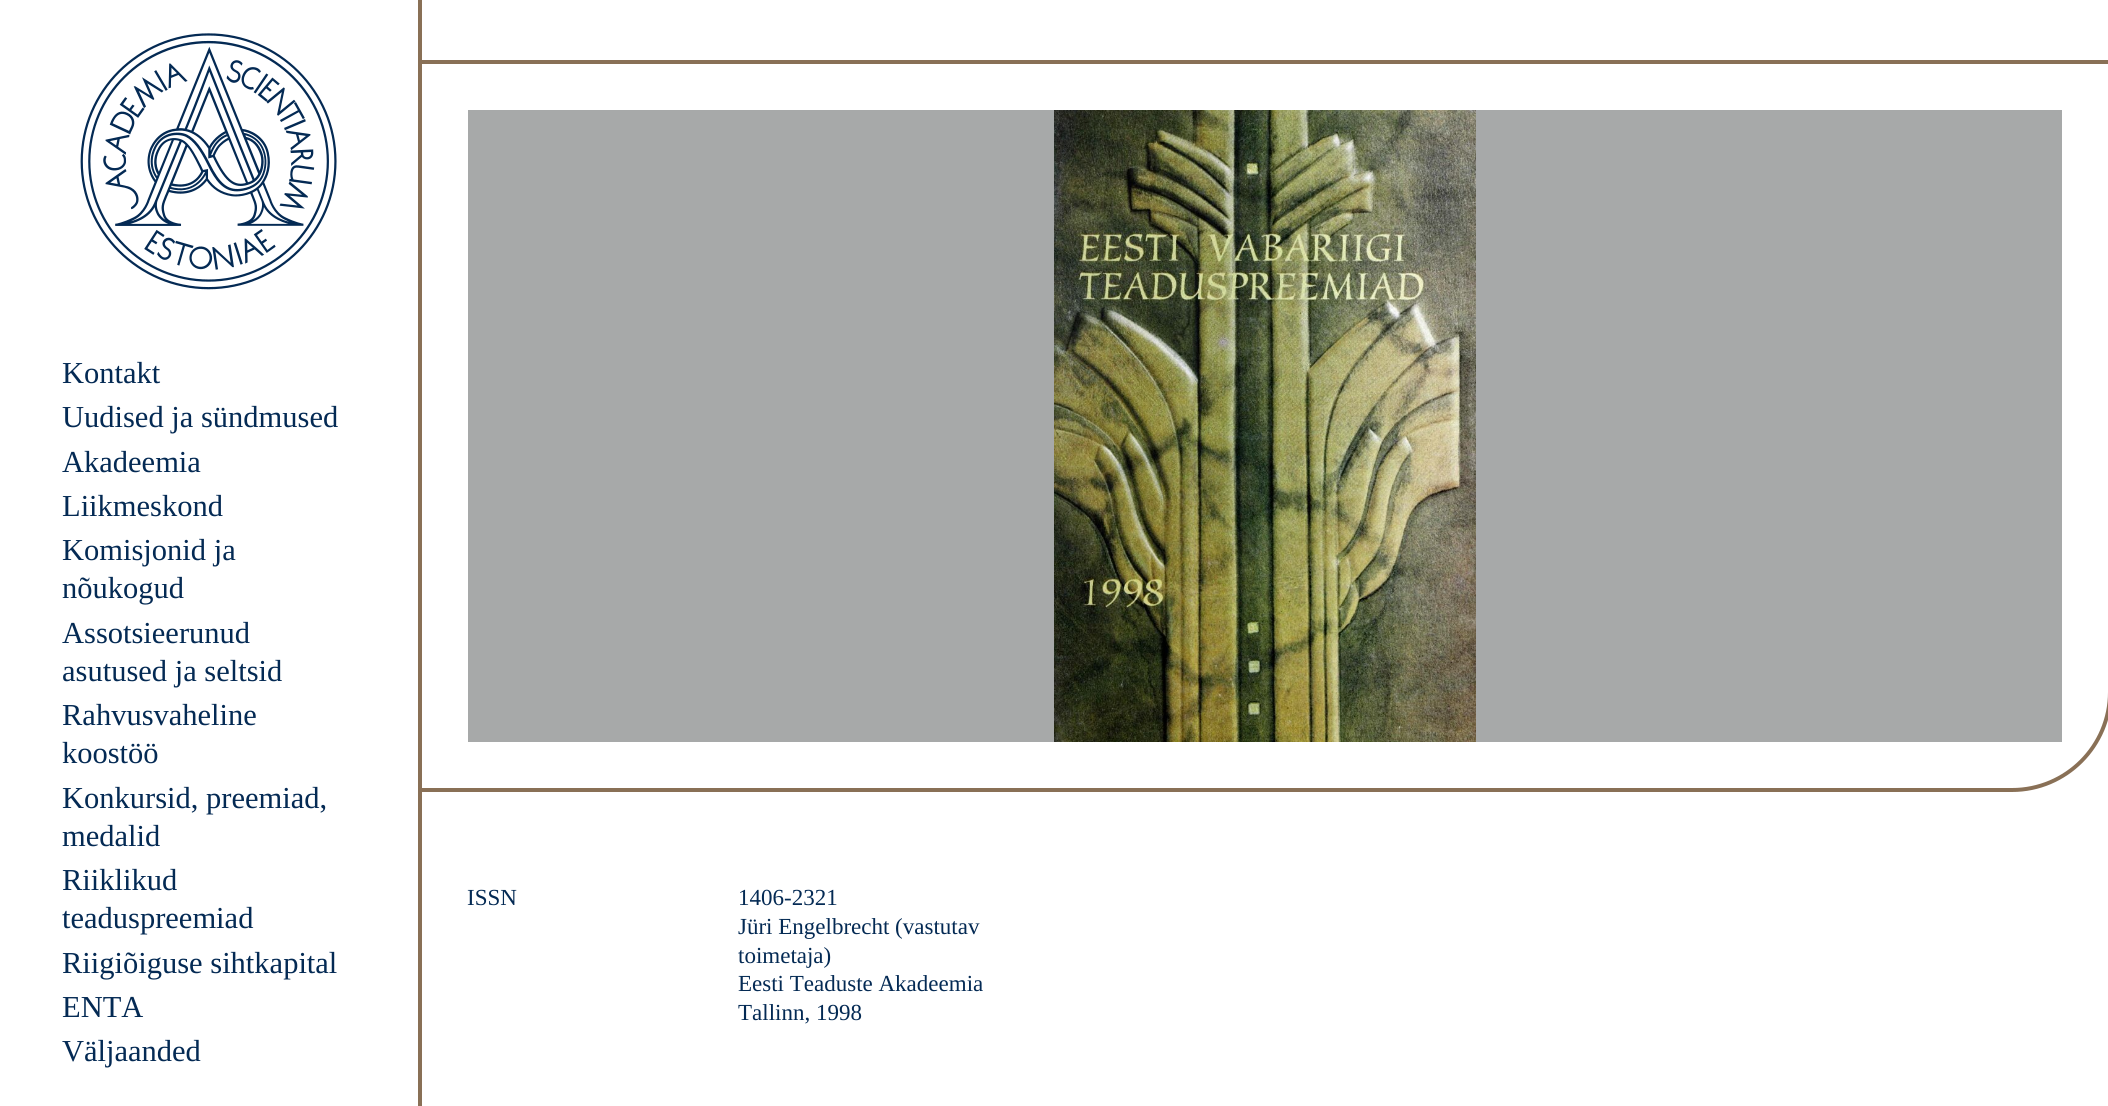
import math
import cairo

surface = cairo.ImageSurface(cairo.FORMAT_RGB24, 2108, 1106)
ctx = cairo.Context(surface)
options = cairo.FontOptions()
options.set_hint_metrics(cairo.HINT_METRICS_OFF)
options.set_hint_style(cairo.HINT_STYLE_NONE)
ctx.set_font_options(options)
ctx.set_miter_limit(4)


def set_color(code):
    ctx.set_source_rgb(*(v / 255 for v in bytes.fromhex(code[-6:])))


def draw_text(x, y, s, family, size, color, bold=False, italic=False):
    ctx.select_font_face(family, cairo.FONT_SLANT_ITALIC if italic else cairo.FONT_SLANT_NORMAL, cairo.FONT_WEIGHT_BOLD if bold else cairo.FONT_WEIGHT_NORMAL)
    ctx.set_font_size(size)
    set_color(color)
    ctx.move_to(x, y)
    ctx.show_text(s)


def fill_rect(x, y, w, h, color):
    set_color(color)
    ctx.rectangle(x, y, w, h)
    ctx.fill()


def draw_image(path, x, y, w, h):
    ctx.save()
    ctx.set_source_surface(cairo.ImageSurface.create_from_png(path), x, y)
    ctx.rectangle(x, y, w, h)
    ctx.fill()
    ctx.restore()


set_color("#ffffff")
ctx.paint()
fill_rect(418, 0, 4, 1106, "#897056")
draw_image("assets/img1.png", 80, 33, 257, 257)
draw_text(62, 383, "Kontakt", "Liberation Serif", 30.5, "#042a54")
draw_text(62, 427, "Uudised ja sündmused", "Liberation Serif", 30.5, "#042a54")
draw_text(62, 472, "Akadeemia", "Liberation Serif", 30.5, "#042a54")
draw_text(62, 516, "Liikmeskond", "Liberation Serif", 30.5, "#042a54")
draw_text(62, 560, "Komisjonid ja", "Liberation Serif", 30.5, "#042a54")
draw_text(62, 598, "nõukogud", "Liberation Serif", 30.5, "#042a54")
draw_text(62, 643, "Assotsieerunud", "Liberation Serif", 30.5, "#042a54")
draw_text(62, 681, "asutused ja seltsid", "Liberation Serif", 30.5, "#042a54")
draw_text(62, 725, "Rahvusvaheline", "Liberation Serif", 30.5, "#042a54")
draw_text(62, 763, "koostöö", "Liberation Serif", 30.5, "#042a54")
draw_text(62, 808, "Konkursid, preemiad,", "Liberation Serif", 30.5, "#042a54")
draw_text(62, 846, "medalid", "Liberation Serif", 30.5, "#042a54")
draw_text(62, 890, "Riiklikud", "Liberation Serif", 30.5, "#042a54")
draw_text(62, 928, "teaduspreemiad", "Liberation Serif", 30.5, "#042a54")
draw_text(62, 973, "Riigiõiguse sihtkapital", "Liberation Serif", 30.5, "#042a54")
draw_text(62, 1017, "ENTA", "Liberation Serif", 30.5, "#042a54")
draw_text(62, 1061, "Väljaanded", "Liberation Serif", 30.5, "#042a54")
set_color("#897056")
ctx.set_fill_rule(cairo.FILL_RULE_EVEN_ODD)
ctx.new_path()
ctx.move_to(422, 60)
ctx.line_to(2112, 60)
ctx.line_to(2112, 692)
ctx.curve_to(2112, 747, 2067, 792, 2012, 792)
ctx.line_to(422, 792)
ctx.close_path()
ctx.move_to(422, 64)
ctx.line_to(2108, 64)
ctx.line_to(2108, 692)
ctx.curve_to(2108, 745, 2065, 788, 2012, 788)
ctx.line_to(422, 788)
ctx.close_path()
ctx.fill()
fill_rect(468, 110, 1594, 632, "#a7a9a9")
draw_image("assets/img2.png", 1054, 110, 422, 632)
draw_text(467, 905, "ISSN", "Liberation Serif", 23, "#042a54")
draw_text(738, 905, "1406-2321", "Liberation Serif", 23, "#042a54")
draw_text(738, 934, "Jüri Engelbrecht (vastutav", "Liberation Serif", 23, "#042a54")
draw_text(738, 963, "toimetaja)", "Liberation Serif", 23, "#042a54")
draw_text(738, 991, "Eesti Teaduste Akadeemia", "Liberation Serif", 23, "#042a54")
draw_text(738, 1020, "Tallinn, 1998", "Liberation Serif", 23, "#042a54")
surface.write_to_png("output.png")
